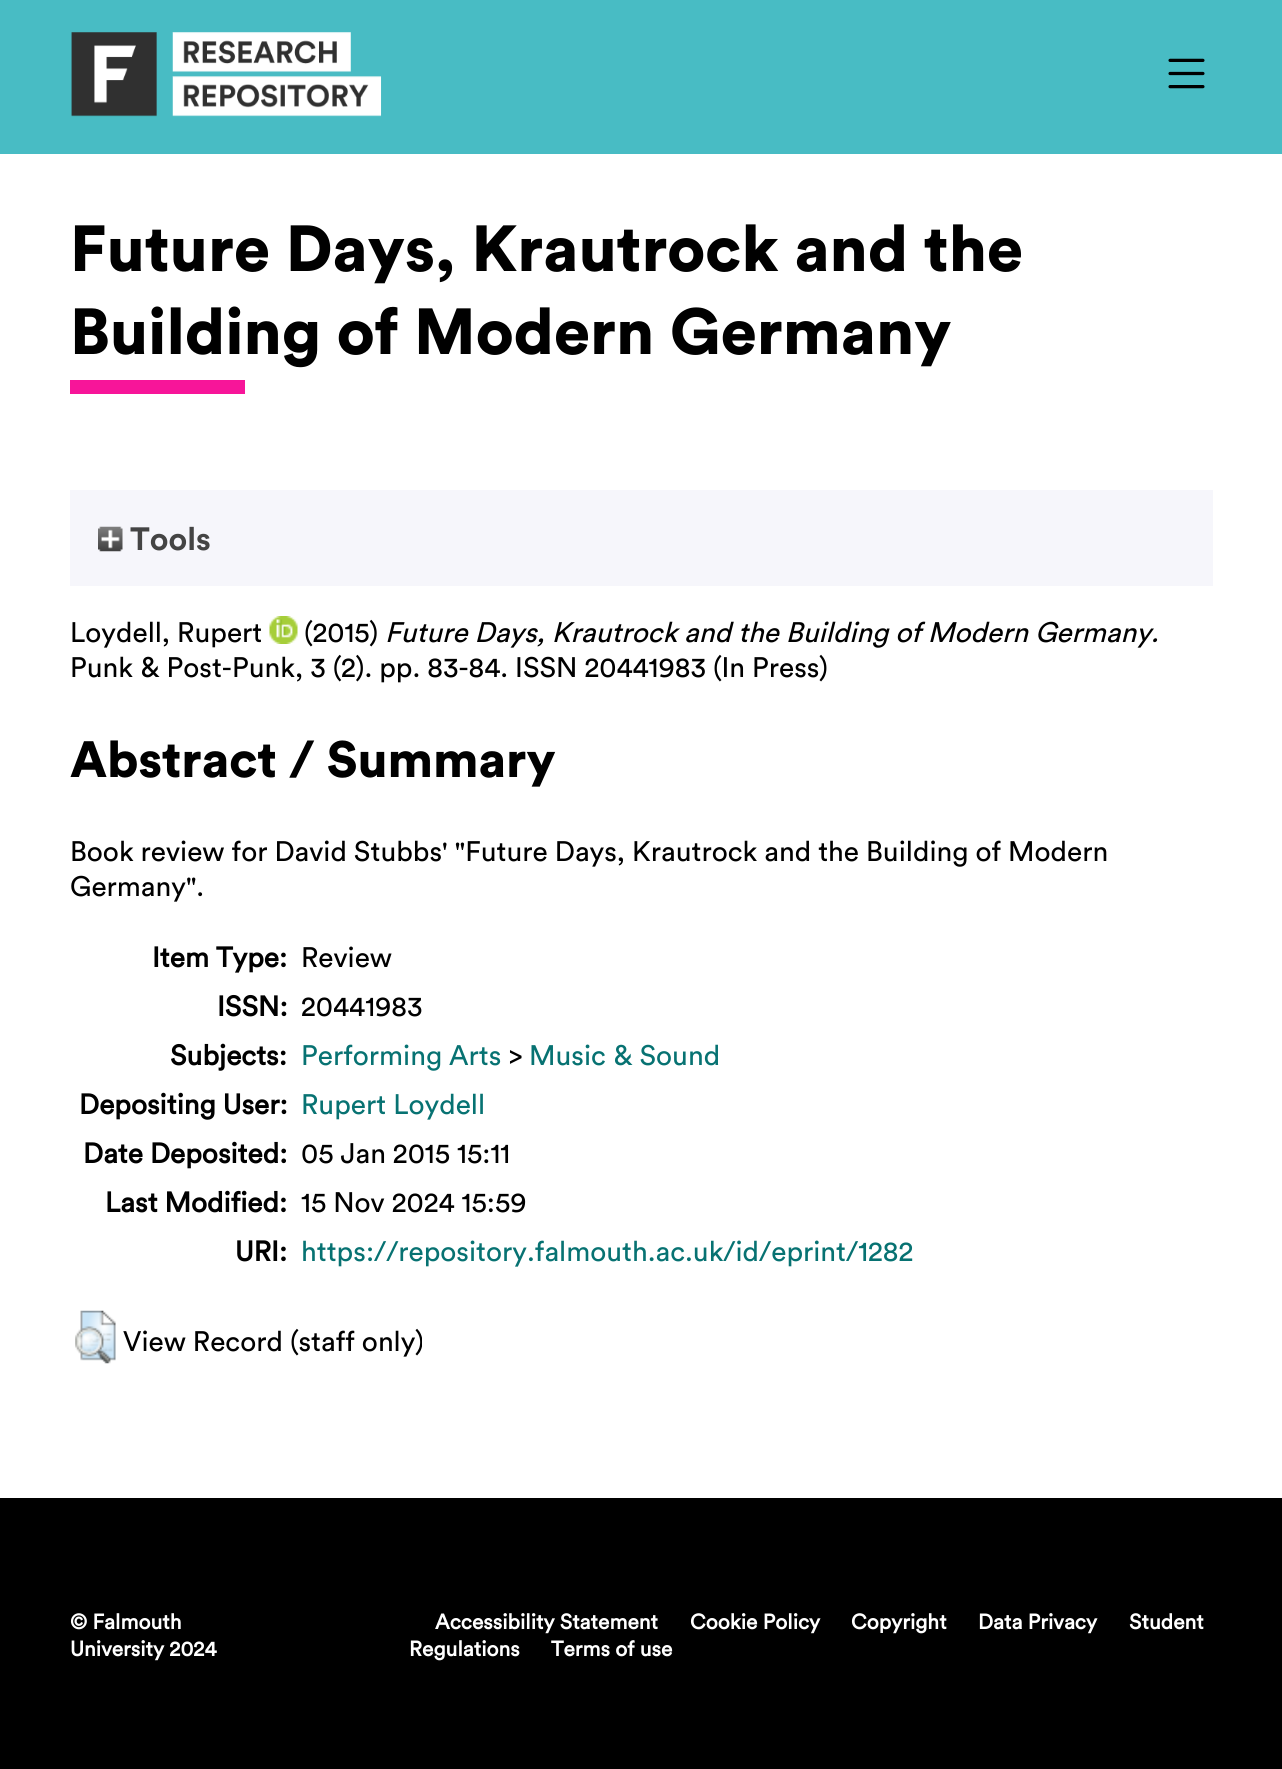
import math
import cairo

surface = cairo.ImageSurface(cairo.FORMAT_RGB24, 1282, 1769)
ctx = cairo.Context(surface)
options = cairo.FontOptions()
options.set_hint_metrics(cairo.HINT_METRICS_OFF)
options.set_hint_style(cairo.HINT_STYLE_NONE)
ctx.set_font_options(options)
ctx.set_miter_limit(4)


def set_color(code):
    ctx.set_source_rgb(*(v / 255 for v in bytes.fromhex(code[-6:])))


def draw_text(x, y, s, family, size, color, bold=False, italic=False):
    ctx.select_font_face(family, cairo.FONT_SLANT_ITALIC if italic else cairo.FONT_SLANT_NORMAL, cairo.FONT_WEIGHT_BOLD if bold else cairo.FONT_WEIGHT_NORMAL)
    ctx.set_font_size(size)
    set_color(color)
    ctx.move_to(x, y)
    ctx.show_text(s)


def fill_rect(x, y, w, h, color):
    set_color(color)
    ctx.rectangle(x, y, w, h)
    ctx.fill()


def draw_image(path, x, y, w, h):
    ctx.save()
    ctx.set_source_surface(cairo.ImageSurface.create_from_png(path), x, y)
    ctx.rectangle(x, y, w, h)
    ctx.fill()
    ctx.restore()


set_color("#ffffff")
ctx.paint()
fill_rect(0, 0, 1282, 154, "#48bcc4")
draw_image("assets/img1.png", 71, 32, 311, 85)
draw_image("assets/img2.png", 1168, 58, 37, 31)
draw_text(70, 271, "Future Days, Krautrock and the", "Circular Black", 64.4, "#000000")
draw_text(70, 354, "Building of Modern Germany", "Circular Black", 64.4, "#000000")
fill_rect(70, 380, 175, 14, "#f71599")
fill_rect(70, 490, 1143, 96, "#f6f6fb")
draw_image("assets/img3.png", 98, 526, 25, 26)
draw_text(130, 550, "Tools", "Circular", 32, "#444444", bold=True)
draw_text(70, 642, "Loydell, Rupert", "Circular", 28, "#000000")
draw_image("assets/img4.png", 269, 616, 29, 28)
draw_text(304, 642, "(2015)", "Circular", 28, "#000000")
draw_text(385, 642, "Future Days, Krautrock and the Building of Modern Germany.", "Circular", 28, "#000000", italic=True)
draw_text(70, 677, "Punk & Post-Punk, 3 (2). pp. 83-84. ISSN 20441983 (In Press)", "Circular", 28, "#000000")
draw_text(70, 777, "Abstract / Summary", "Circular Black", 50.5, "#000000")
draw_text(70, 861, "Book review for David Stubbs' \"Future Days, Krautrock and the Building of Modern", "Circular", 28, "#000000")
draw_text(70, 896, "Germany\".", "Circular", 28, "#000000")
draw_text(152, 967, "Item Type:", "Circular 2", 28, "#000000", bold=True)
draw_text(301, 967, "Review", "Circular", 28, "#000000")
draw_text(217, 1016, "ISSN:", "Circular 2", 28, "#000000", bold=True)
draw_text(301, 1016, "20441983", "Circular", 28, "#000000")
draw_text(170, 1065, "Subjects:", "Circular 2", 28, "#000000", bold=True)
draw_text(301, 1065, "Performing Arts", "Circular", 28, "#077272")
draw_text(509, 1065, ">", "Circular", 28, "#000000")
draw_text(529, 1065, "Music & Sound", "Circular", 28, "#077272")
draw_text(79, 1114, "Depositing User:", "Circular 2", 28, "#000000", bold=True)
draw_text(301, 1114, "Rupert Loydell", "Circular", 28, "#077272")
draw_text(83, 1163, "Date Deposited:", "Circular 2", 28, "#000000", bold=True)
draw_text(301, 1163, "05 Jan 2015 15:11", "Circular", 28, "#000000")
draw_text(105, 1212, "Last Modified:", "Circular 2", 28, "#000000", bold=True)
draw_text(301, 1212, "15 Nov 2024 15:59", "Circular", 28, "#000000")
draw_text(235, 1261, "URI:", "Circular 2", 28, "#000000", bold=True)
draw_text(301, 1261, "https://repository.falmouth.ac.uk/id/eprint/1282", "Circular", 28, "#077272")
draw_image("assets/img5.png", 75, 1310, 41, 54)
draw_text(123, 1351, "View Record (staff only)", "Circular", 28, "#000000")
fill_rect(0, 1498, 1282, 271, "#000000")
draw_text(70, 1629, "© Falmouth", "Circular 2", 21, "#ffffff", bold=True)
draw_text(70, 1656, "University 2024", "Circular 2", 21, "#ffffff", bold=True)
draw_text(435, 1629, "Accessibility Statement", "Circular 2", 21, "#ffffff", bold=True)
draw_text(690, 1629, "Cookie Policy", "Circular 2", 21, "#ffffff", bold=True)
draw_text(851, 1629, "Copyright", "Circular 2", 21, "#ffffff", bold=True)
draw_text(978, 1629, "Data Privacy", "Circular 2", 21, "#ffffff", bold=True)
draw_text(1129, 1629, "Student", "Circular 2", 21, "#ffffff", bold=True)
draw_text(409, 1656, "Regulations", "Circular 2", 21, "#ffffff", bold=True)
draw_text(551, 1656, "Terms of use", "Circular 2", 21, "#ffffff", bold=True)
surface.write_to_png("output.png")
